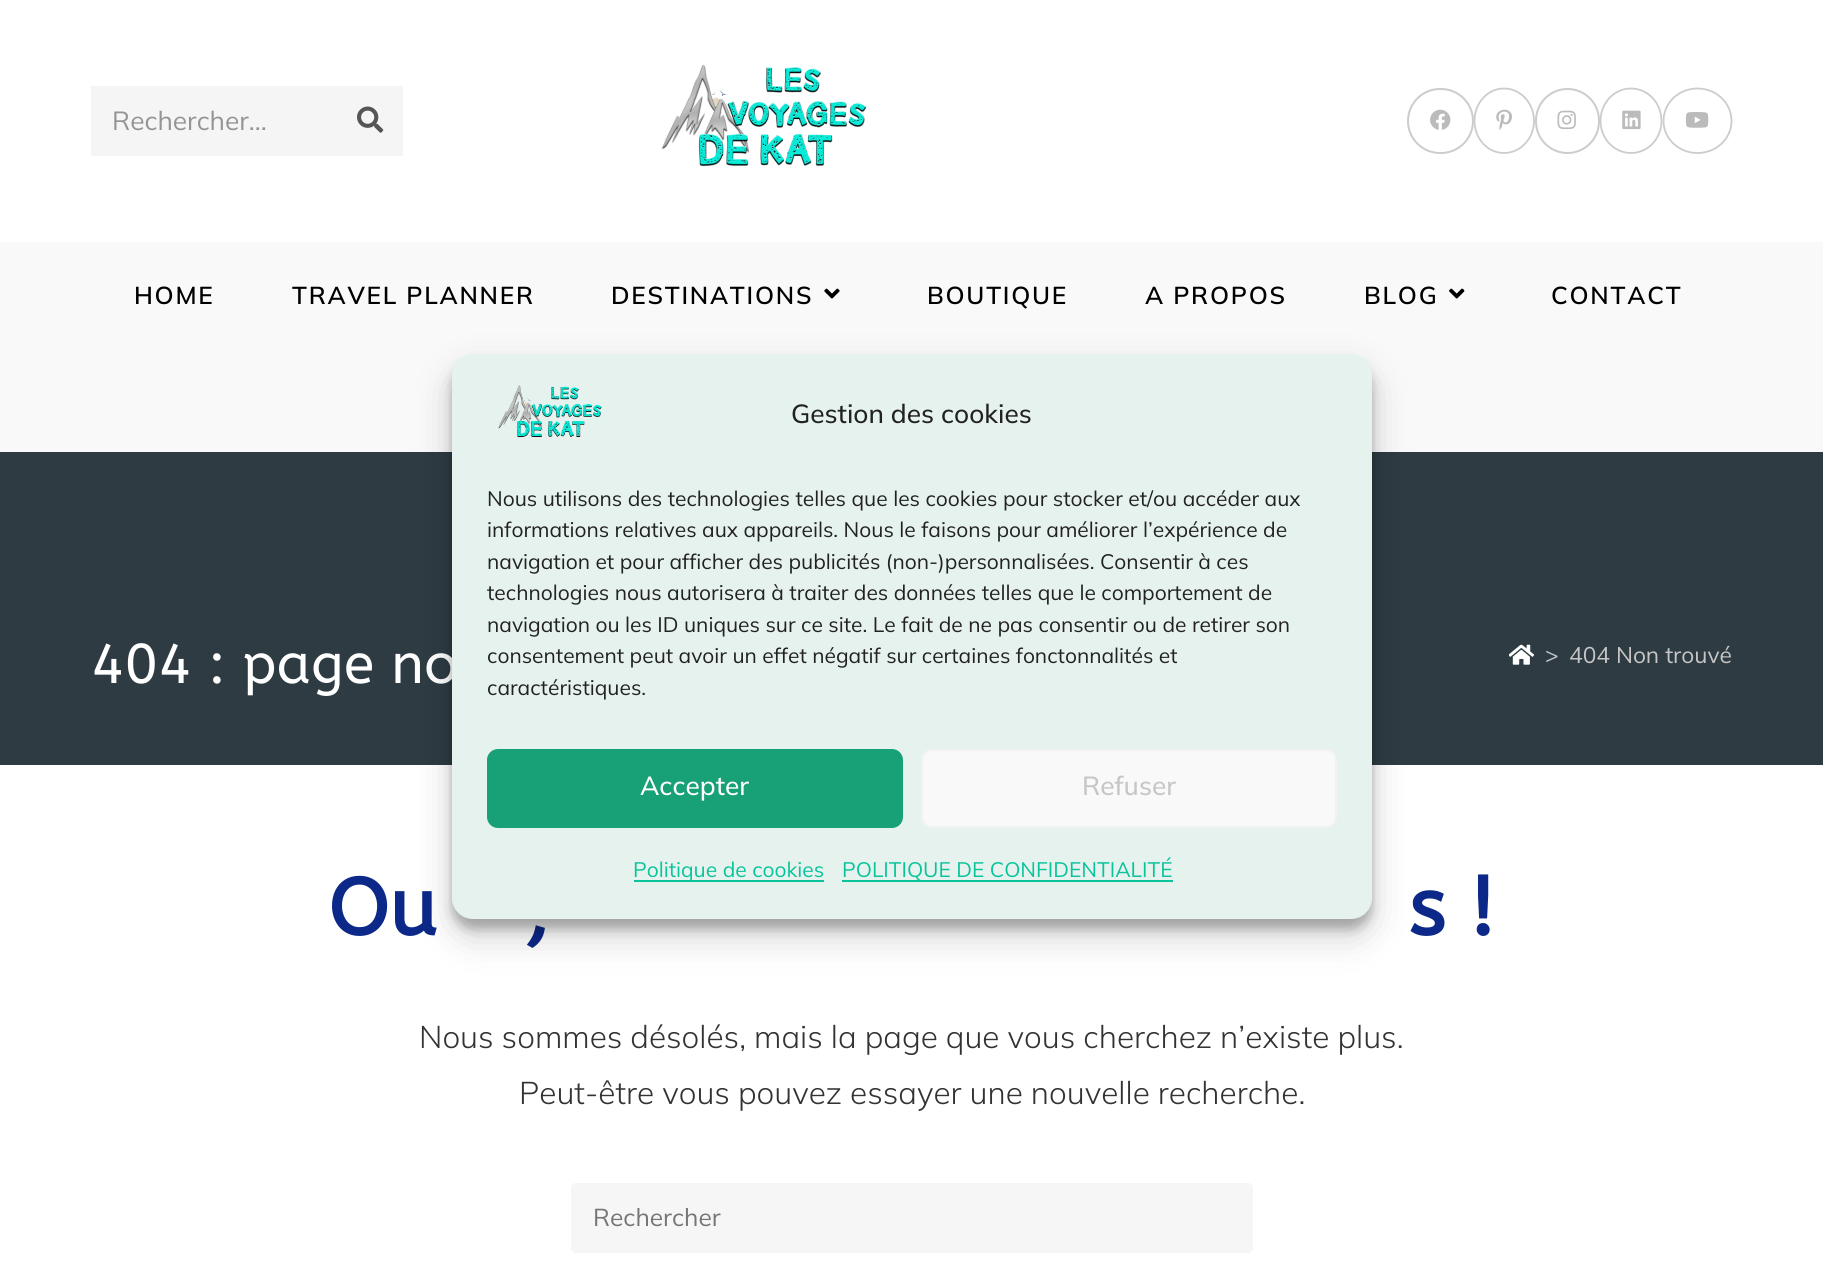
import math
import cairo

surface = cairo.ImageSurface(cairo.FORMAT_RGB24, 1823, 1268)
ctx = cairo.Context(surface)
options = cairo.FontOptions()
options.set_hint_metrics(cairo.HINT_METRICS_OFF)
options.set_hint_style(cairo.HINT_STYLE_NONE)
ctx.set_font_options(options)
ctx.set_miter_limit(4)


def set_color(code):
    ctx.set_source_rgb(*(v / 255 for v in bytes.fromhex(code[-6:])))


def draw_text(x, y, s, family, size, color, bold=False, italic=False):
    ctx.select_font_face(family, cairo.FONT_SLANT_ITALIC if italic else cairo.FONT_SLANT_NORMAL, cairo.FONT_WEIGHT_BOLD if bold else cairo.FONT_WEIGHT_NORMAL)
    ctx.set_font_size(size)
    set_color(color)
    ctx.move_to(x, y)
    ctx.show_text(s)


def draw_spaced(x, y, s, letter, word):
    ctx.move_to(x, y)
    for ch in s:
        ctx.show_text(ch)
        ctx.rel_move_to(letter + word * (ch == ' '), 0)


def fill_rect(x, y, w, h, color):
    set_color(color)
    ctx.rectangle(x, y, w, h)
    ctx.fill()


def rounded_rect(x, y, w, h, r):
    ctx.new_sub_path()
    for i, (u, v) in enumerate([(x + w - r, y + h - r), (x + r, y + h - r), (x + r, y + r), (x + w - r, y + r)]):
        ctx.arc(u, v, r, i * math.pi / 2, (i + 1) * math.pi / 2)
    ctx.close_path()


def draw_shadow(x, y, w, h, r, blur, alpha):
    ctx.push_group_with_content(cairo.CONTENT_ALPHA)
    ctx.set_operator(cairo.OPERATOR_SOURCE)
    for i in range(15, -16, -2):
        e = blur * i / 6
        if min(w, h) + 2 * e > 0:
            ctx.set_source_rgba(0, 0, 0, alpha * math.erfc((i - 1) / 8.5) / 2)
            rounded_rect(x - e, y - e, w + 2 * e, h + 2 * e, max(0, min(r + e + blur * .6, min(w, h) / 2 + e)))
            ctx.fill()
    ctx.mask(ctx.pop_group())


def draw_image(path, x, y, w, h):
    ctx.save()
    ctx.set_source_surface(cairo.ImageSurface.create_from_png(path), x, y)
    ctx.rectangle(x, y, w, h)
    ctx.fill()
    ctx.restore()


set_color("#ffffff")
ctx.paint()
fill_rect(91, 86, 312, 70, "#f5f5f5")
draw_text(112, 130, "Rechercher…", "Mulish ExtraLight", 26.25, "#949494")
draw_image("assets/img1.png", 357, 106, 27, 27)
draw_image("assets/img2.png", 661, 64, 205, 103)
rounded_rect(1408, 89, 65, 64, 32)
set_color("#cccccc")
ctx.stroke()
draw_image("assets/img3.png", 1430, 109, 21, 21)
ctx.new_path()
ctx.move_to(1504, 88.5)
ctx.curve_to(1520.5, 88.5, 1534, 103, 1534, 121)
ctx.curve_to(1534, 138.5, 1520.5, 153, 1504, 153)
ctx.curve_to(1487.5, 153, 1474.5, 138.5, 1474.5, 121)
ctx.curve_to(1474.5, 103, 1487.5, 88.5, 1504, 88.5)
ctx.close_path()
ctx.set_line_width(1.8)
ctx.stroke()
draw_image("assets/img4.png", 1496, 109, 16, 21)
rounded_rect(1536, 89, 63, 64, 31.5)
ctx.set_line_width(2)
ctx.stroke()
draw_image("assets/img5.png", 1557, 110, 19, 20)
ctx.new_path()
ctx.move_to(1631, 88.5)
ctx.curve_to(1648, 88.5, 1661.5, 103, 1661.5, 121)
ctx.curve_to(1661.5, 138.5, 1648, 153, 1631, 153)
ctx.curve_to(1614, 153, 1600.5, 138.5, 1600.5, 121)
ctx.curve_to(1600.5, 103, 1614, 88.5, 1631, 88.5)
ctx.close_path()
ctx.set_line_width(1.8)
ctx.stroke()
draw_image("assets/img6.png", 1622, 110, 19, 20)
ctx.new_path()
ctx.move_to(1697.5, 88.5)
ctx.curve_to(1716.5, 88.5, 1731.5, 103, 1731.5, 121)
ctx.curve_to(1731.5, 138.5, 1716.5, 153, 1697.5, 153)
ctx.curve_to(1678.5, 153, 1663.5, 138.5, 1663.5, 121)
ctx.curve_to(1663.5, 103, 1678.5, 88.5, 1697.5, 88.5)
ctx.close_path()
ctx.stroke()
draw_image("assets/img7.png", 1685, 112, 24, 16)
fill_rect(0, 242, 1823, 210, "#f9f9f9")
ctx.select_font_face("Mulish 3 ExtraLight")
ctx.set_font_size(24.5)
set_color("#000000")
draw_spaced(134, 304, "HOME", 1.75, 0)
draw_spaced(292, 304, "TRAVEL PLANNER", 1.75, 0)
draw_spaced(611, 304, "DESTINATIONS", 1.75, 0)
draw_image("assets/img8.png", 824, 288, 16, 11)
draw_spaced(927, 304, "BOUTIQUE", 1.75, 0)
draw_spaced(1145, 304, "A PROPOS", 1.75, 0)
draw_spaced(1364, 304, "BLOG", 1.75, 0)
draw_image("assets/img9.png", 1449, 288, 16, 11)
draw_spaced(1551, 304, "CONTACT", 1.75, 0)
fill_rect(0, 452, 1823, 313, "#2e3b42")
draw_text(91, 683, "404 : page no", "ABeeZee", 56, "#ffffff")
draw_image("assets/img10.png", 1509, 644, 26, 21)
draw_text(1545, 663, ">", "Mulish ExtraLight", 22.75, "#c6c6c6")
draw_text(1569, 663, "404 Non trouvé", "Mulish ExtraLight", 22.75, "#c6c6c6")
draw_text(328, 935, "Ou", "ABeeZee", 80, "#0c2888", bold=True)
draw_text(525, 935, ",", "ABeeZee", 80, "#0c2888", bold=True)
draw_text(1408, 935, "s !", "ABeeZee", 80, "#0c2888", bold=True)
draw_text(419, 1048, "Nous sommes désolés, mais la page que vous cherchez n’existe plus.", "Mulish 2 ExtraLight", 31.5, "#333333")
draw_text(519, 1104, "Peut-être vous pouvez essayer une nouvelle recherche.", "Mulish 2 ExtraLight", 31.5, "#333333")
set_color("#f6f6f6")
rounded_rect(571, 1183, 682, 70, 5)
ctx.fill()
draw_text(593, 1226, "Rechercher", "Mulish ExtraLight", 24.5, "#757575")
set_color("#000000")
draw_shadow(452, 364, 920, 565, 21, 5, 0.23)
draw_shadow(452, 371, 920, 565, 21, 17.5, 0.19)
set_color("#e6f2ed")
rounded_rect(452, 354, 920, 565, 21)
ctx.fill()
draw_image("assets/img11.png", 498, 385, 104, 53)
draw_text(791, 423, "Gestion des cookies", "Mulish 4 ExtraLight", 26.25, "#222222")
draw_text(487, 506, "Nous utilisons des technologies telles que les cookies pour stocker et/ou accéder aux", "Mulish ExtraLight", 21, "#222222")
draw_text(487, 537, "informations relatives aux appareils. Nous le faisons pour améliorer l’expérience de", "Mulish ExtraLight", 21, "#222222")
draw_text(487, 569, "navigation et pour afficher des publicités (non-)personnalisées. Consentir à ces", "Mulish ExtraLight", 21, "#222222")
draw_text(487, 600, "technologies nous autorisera à traiter des données telles que le comportement de", "Mulish ExtraLight", 21, "#222222")
draw_text(487, 632, "navigation ou les ID uniques sur ce site. Le fait de ne pas consentir ou de retirer son", "Mulish ExtraLight", 21, "#222222")
draw_text(487, 663, "consentement peut avoir un effet négatif sur certaines fonctonnalités et", "Mulish ExtraLight", 21, "#222222")
draw_text(487, 695, "caractéristiques.", "Mulish ExtraLight", 21, "#222222")
set_color("#18a077")
rounded_rect(488, 750, 414, 77, 10)
ctx.fill_preserve()
ctx.set_line_width(2)
ctx.stroke()
draw_text(640, 795, "Accepter", "Mulish 4 ExtraLight", 26.25, "#ffffff")
set_color("#f9f9f9")
rounded_rect(922, 750, 414, 77, 10)
ctx.fill_preserve()
set_color("#f2f2f2")
ctx.stroke()
draw_text(1082, 795, "Refuser", "Mulish 4 ExtraLight", 26.25, "#c6c6c6")
fill_rect(634, 880, 190, 2, "#09c49b")
draw_text(633, 877, "Politique de cookies", "Mulish ExtraLight", 21, "#09c49b")
fill_rect(842, 880, 331, 2, "#09c49b")
draw_text(842, 877, "POLITIQUE DE CONFIDENTIALITÉ", "Mulish ExtraLight", 21, "#09c49b")
surface.write_to_png("output.png")
